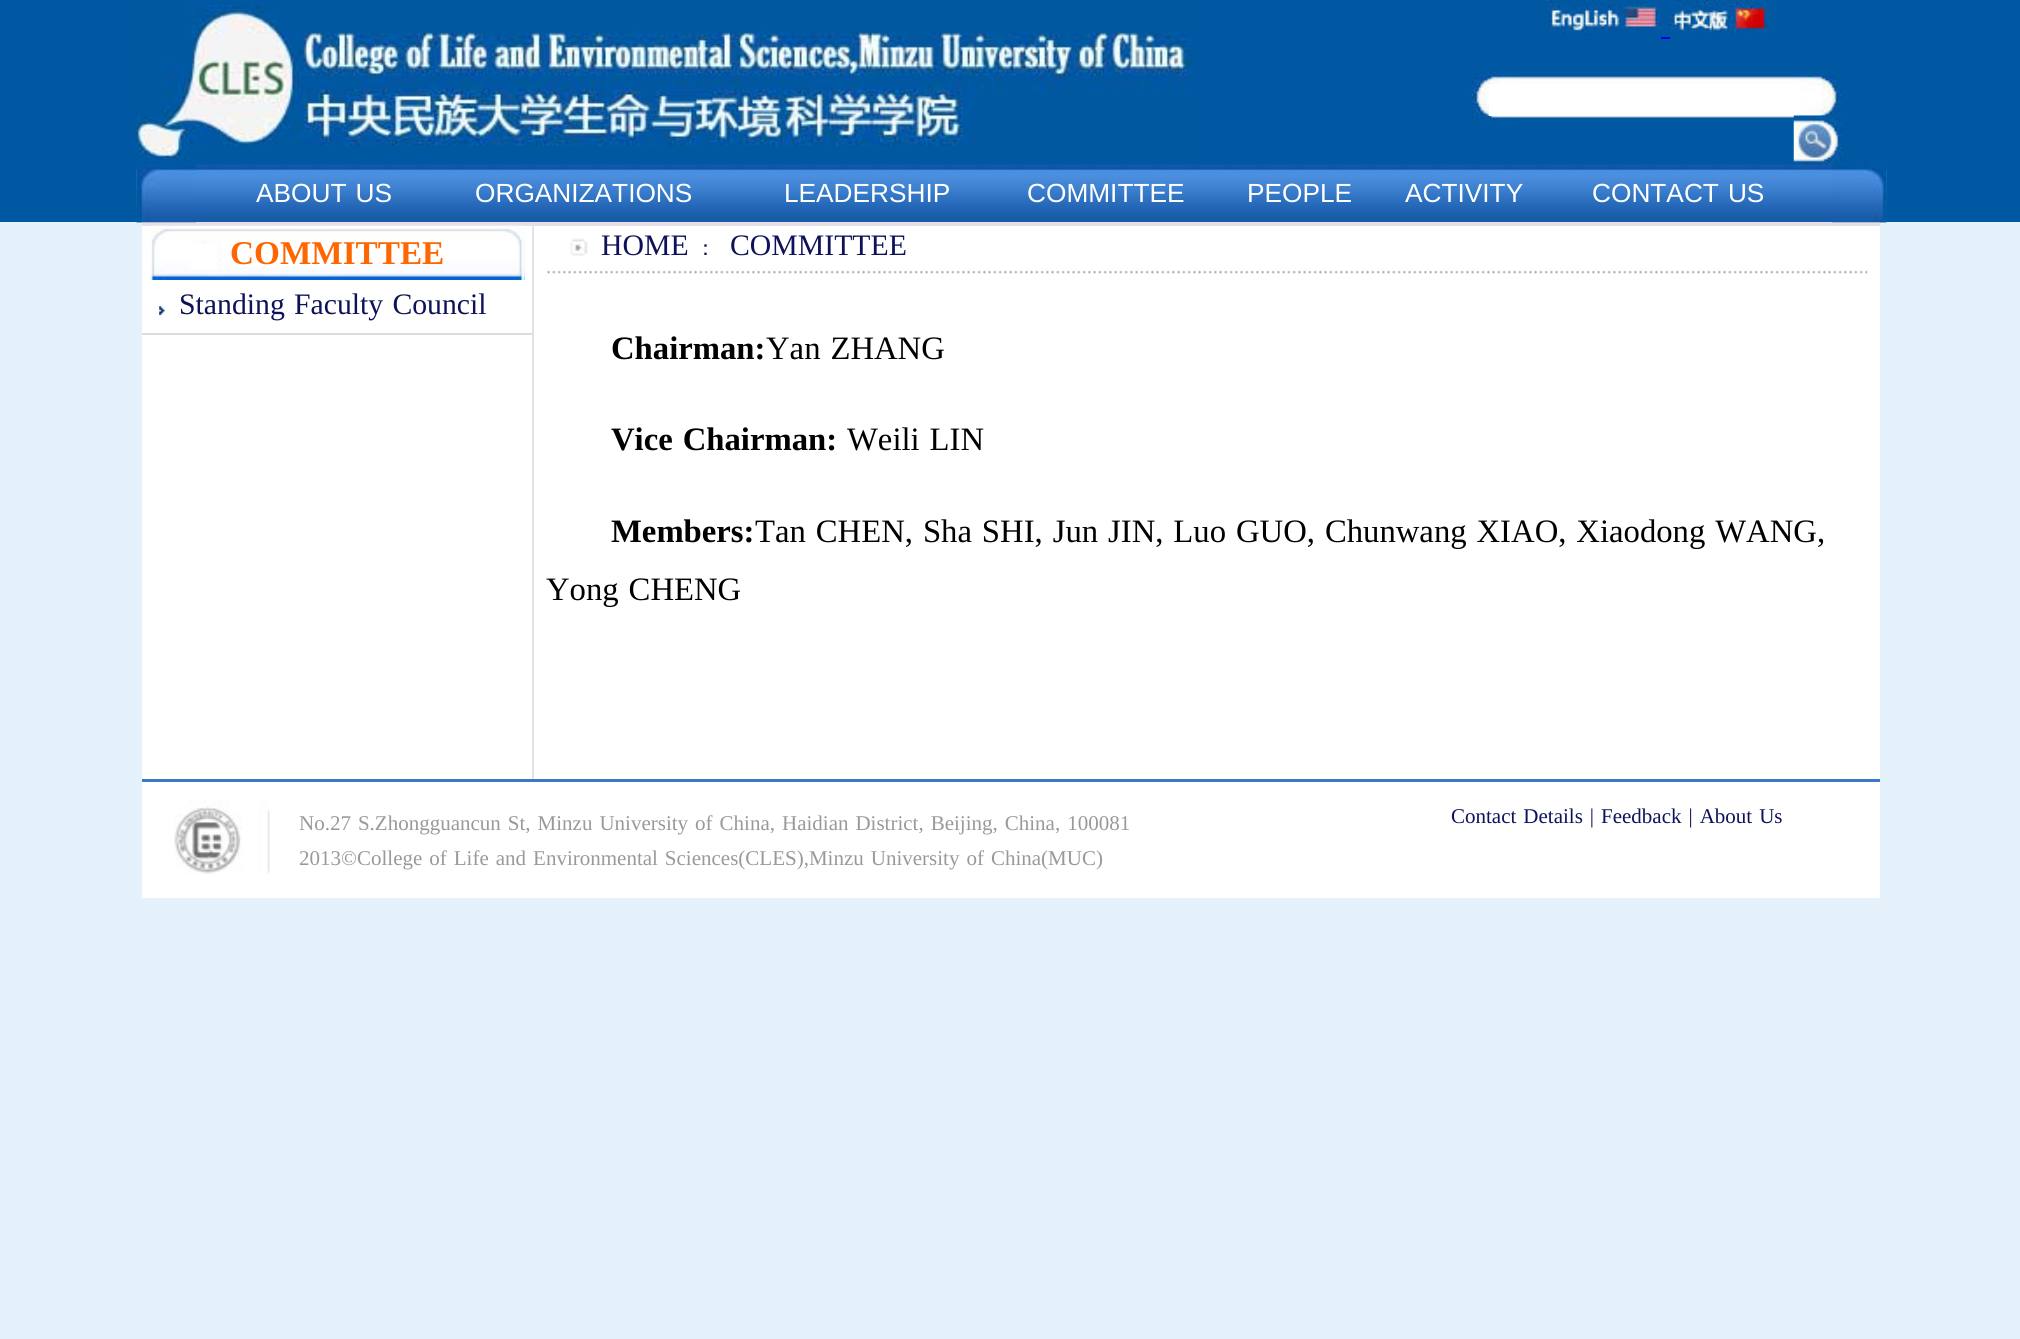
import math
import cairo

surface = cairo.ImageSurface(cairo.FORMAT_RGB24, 2020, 1339)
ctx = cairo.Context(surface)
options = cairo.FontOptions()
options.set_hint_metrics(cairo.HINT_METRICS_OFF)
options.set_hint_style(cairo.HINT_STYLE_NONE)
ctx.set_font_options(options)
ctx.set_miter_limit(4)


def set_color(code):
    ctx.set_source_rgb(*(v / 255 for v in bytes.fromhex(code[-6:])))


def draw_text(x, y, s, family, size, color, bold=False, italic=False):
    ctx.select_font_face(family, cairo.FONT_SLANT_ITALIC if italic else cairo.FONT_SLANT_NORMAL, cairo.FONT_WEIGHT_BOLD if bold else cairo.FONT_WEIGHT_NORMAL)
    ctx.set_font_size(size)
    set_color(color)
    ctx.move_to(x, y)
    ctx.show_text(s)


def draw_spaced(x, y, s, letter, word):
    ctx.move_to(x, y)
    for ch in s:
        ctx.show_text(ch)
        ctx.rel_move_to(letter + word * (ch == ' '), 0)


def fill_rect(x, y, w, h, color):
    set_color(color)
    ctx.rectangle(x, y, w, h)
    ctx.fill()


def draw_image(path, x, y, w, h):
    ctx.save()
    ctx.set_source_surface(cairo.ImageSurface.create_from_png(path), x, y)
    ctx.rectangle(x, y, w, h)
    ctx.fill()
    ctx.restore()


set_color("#e4f1fa")
ctx.paint()
fill_rect(0, 0, 2020, 222, "#0058a2")
draw_image("assets/img1.png", 136, 5, 1056, 154)
draw_image("assets/img2.png", 1547, 0, 114, 35)
draw_image("assets/img3.png", 1669, 0, 101, 35)
fill_rect(1661, 37, 9, 2, "#0000ee")
draw_image("assets/img4.png", 1471, 72, 370, 49)
fill_rect(1489, 84, 310, 32, "#ffffff")
draw_image("assets/img6.png", 136, 164, 1751, 59)
draw_image("assets/img5.png", 1793, 115, 50, 50)
fill_rect(142, 222, 1738, 4, "#e5e0e7")
draw_image("assets/img7.png", 136, 164, 60, 59)
ctx.select_font_face("Liberation Sans")
ctx.set_font_size(26.25)
set_color("#ffffff")
draw_spaced(256, 202, "ABOUT US", 0, 1.75)
draw_text(475, 202, "ORGANIZATIONS", "Liberation Sans", 26.25, "#ffffff")
draw_text(784, 202, "LEADERSHIP", "Liberation Sans", 26.25, "#ffffff")
draw_text(1027, 202, "COMMITTEE", "Liberation Sans", 26.25, "#ffffff")
draw_text(1247, 202, "PEOPLE", "Liberation Sans", 26.25, "#ffffff")
draw_text(1405, 202, "ACTIVITY", "Liberation Sans", 26.25, "#ffffff")
draw_spaced(1592, 202, "CONTACT US", 0, 1.75)
draw_image("assets/img8.png", 1832, 164, 55, 59)
fill_rect(142, 226, 1738, 553, "#ffffff")
draw_image("assets/img9.png", 150, 225, 375, 55)
draw_text(230, 264, "COMMITTEE", "Liberation Serif", 33.25, "#fe6700", bold=True)
draw_image("assets/img10.png", 159, 306, 6, 9)
ctx.select_font_face("Liberation Serif")
ctx.set_font_size(29.75)
set_color("#0e1259")
draw_spaced(179, 314, "Standing Faculty Council", 0, 1.75)
fill_rect(142, 333, 390, 2, "#dddddd")
fill_rect(532, 226, 2, 553, "#e6e0ea")
draw_image("assets/img11.png", 570, 238, 18, 18)
draw_text(601, 255, "HOME", "Liberation Serif", 29.75, "#0e1259")
draw_text(695, 255, "：", "WenQuanYi Zen Hei Medium", 21, "#0e1259")
draw_text(730, 255, "COMMITTEE", "Liberation Serif", 29.75, "#0e1259")
draw_image("assets/img12.png", 547, 270, 1321, 4)
draw_text(611, 359, "Chairman:", "Liberation Serif", 32.7, "#000000", bold=True)
ctx.select_font_face("Liberation Serif")
draw_spaced(766, 359, "Yan ZHANG", 0, 1.75)
ctx.select_font_face("Liberation Serif", cairo.FONT_SLANT_NORMAL, cairo.FONT_WEIGHT_BOLD)
draw_spaced(611, 450, "Vice Chairman:", 0, 1.75)
ctx.select_font_face("Liberation Serif")
draw_spaced(847, 450, "Weili LIN", 0, 1.75)
draw_text(611, 542, "Members:", "Liberation Serif", 32.7, "#000000", bold=True)
ctx.select_font_face("Liberation Serif")
draw_spaced(755, 542, "Tan CHEN, Sha SHI, Jun JIN, Luo GUO, Chunwang XIAO, Xiaodong WANG,", 0, 1.75)
draw_spaced(546, 600, "Yong CHENG", 0, 1.75)
fill_rect(142, 779, 1738, 3, "#387ac5")
fill_rect(142, 782, 1738, 116, "#ffffff")
draw_image("assets/img13.png", 174, 800, 96, 74)
ctx.set_font_size(21)
set_color("#999999")
draw_spaced(299, 830, "No.27 S.Zhongguancun St, Minzu University of China, Haidian District, Beijing, China, 100081", 0, 1.75)
draw_spaced(299, 865, "2013©College of Life and Environmental Sciences(CLES),Minzu University of China(MUC)", 0, 1.75)
set_color("#0e1259")
draw_spaced(1451, 823, "Contact Details | Feedback | About Us", 0, 1.75)
surface.write_to_png("output.png")
